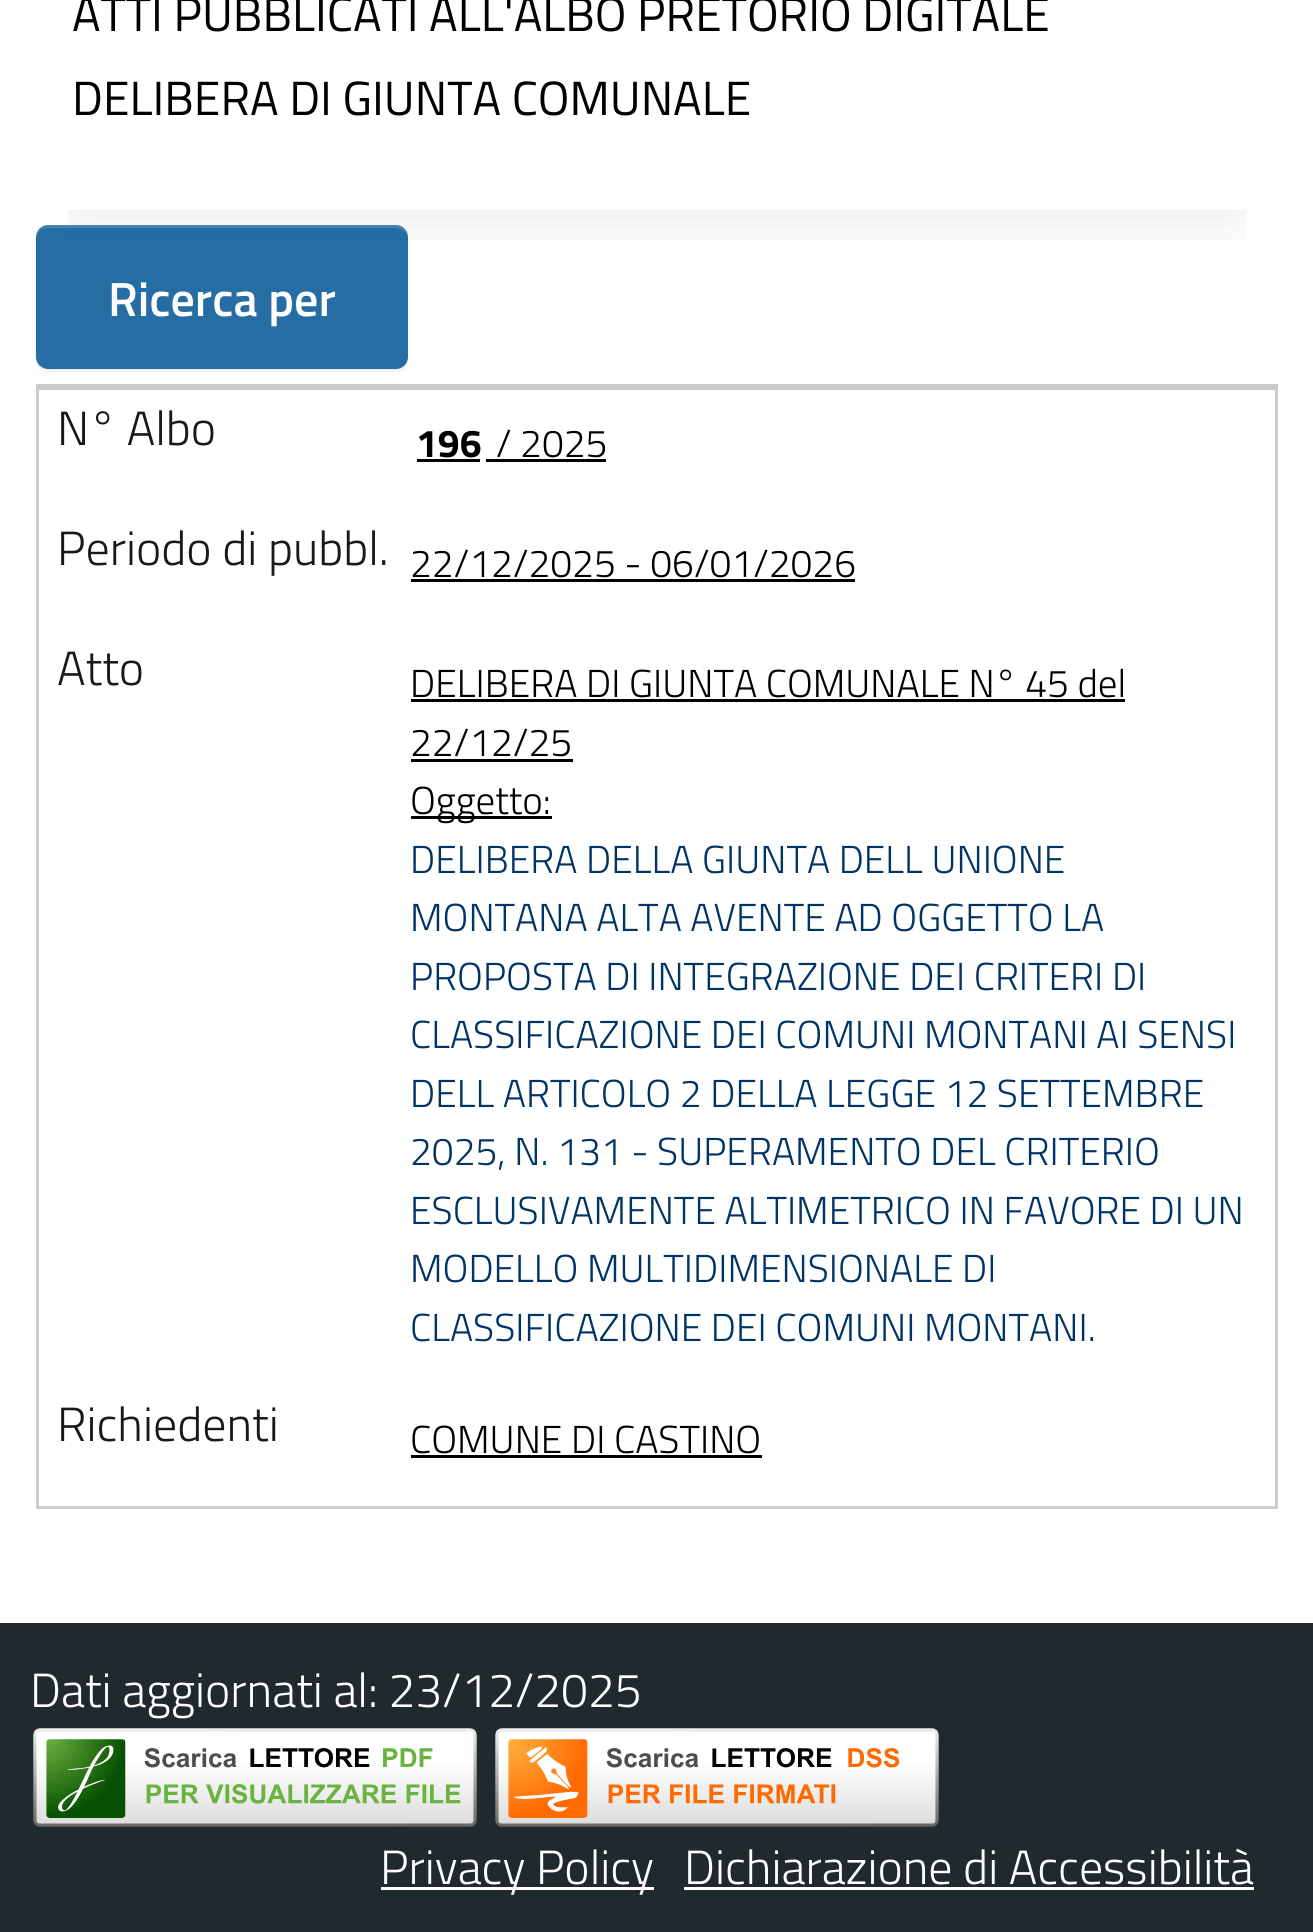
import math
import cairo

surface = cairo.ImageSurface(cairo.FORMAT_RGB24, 1313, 1932)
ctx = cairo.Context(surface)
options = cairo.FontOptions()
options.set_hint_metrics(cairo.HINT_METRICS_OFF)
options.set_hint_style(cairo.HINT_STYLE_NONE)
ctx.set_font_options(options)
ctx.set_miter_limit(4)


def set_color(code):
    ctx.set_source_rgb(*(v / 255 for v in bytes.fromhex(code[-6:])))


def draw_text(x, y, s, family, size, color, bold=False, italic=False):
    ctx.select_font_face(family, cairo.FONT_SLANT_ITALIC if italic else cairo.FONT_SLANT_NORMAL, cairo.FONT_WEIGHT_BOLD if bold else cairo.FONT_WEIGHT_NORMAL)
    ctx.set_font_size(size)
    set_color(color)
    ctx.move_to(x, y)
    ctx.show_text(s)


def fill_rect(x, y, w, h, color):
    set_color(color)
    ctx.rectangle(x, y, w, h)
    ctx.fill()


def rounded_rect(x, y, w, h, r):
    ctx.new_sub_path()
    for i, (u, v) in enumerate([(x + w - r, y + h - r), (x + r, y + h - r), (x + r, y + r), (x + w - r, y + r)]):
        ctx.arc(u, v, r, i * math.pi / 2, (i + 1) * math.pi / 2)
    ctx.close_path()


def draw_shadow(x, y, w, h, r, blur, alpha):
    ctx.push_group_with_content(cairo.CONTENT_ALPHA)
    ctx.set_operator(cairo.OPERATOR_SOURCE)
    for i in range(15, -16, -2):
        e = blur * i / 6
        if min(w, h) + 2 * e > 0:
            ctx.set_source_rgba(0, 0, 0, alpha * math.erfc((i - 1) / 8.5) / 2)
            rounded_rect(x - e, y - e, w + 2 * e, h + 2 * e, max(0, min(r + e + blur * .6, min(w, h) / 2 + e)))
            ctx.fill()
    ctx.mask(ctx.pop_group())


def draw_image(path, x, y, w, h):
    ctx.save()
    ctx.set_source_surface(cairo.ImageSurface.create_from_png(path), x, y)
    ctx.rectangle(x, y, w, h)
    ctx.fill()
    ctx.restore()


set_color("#ffffff")
ctx.paint()
ctx.save()
ctx.rectangle(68, 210, 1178, 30)
ctx.clip()
set_color("#000000")
draw_shadow(78, -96, 1158, 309, 0, 32, 0.1)
ctx.restore()
draw_text(72, 31, "ATTI PUBBLICATI ALL'ALBO PRETORIO DIGITALE", "Titillium Web", 48, "#000000")
draw_text(72, 115, "DELIBERA DI GIUNTA COMUNALE", "Titillium Web", 48, "#000000")
ctx.save()
ctx.set_fill_rule(cairo.FILL_RULE_EVEN_ODD)
ctx.new_path()
ctx.move_to(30, 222)
ctx.line_to(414, 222)
ctx.line_to(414, 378)
ctx.line_to(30, 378)
ctx.close_path()
ctx.move_to(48, 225)
ctx.line_to(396, 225)
ctx.curve_to(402.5, 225, 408, 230.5, 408, 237)
ctx.line_to(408, 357)
ctx.curve_to(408, 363.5, 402.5, 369, 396, 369)
ctx.line_to(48, 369)
ctx.curve_to(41.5, 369, 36, 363.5, 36, 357)
ctx.line_to(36, 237)
ctx.curve_to(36, 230.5, 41.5, 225, 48, 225)
ctx.close_path()
ctx.clip()
set_color("#000000")
draw_shadow(36, 228, 372, 144, 12, 1.5, 0.07)
ctx.restore()
ctx.set_source_rgba(0, 0.329, 0.576, 0.85)
rounded_rect(36, 225, 372, 144, 12)
ctx.fill()
ctx.set_source_rgba(1, 1, 1, 0.15)
ctx.new_path()
ctx.move_to(48, 228)
ctx.line_to(396, 228)
ctx.curve_to(403, 228, 408, 233, 408, 240)
ctx.line_to(408, 237)
ctx.curve_to(408, 230, 403, 225, 396, 225)
ctx.line_to(48, 225)
ctx.curve_to(41, 225, 36, 230, 36, 237)
ctx.line_to(36, 240)
ctx.curve_to(36, 233, 41, 228, 48, 228)
ctx.close_path()
ctx.fill()
draw_text(108, 316, "Ricerca per", "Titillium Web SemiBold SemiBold", 48, "#ffffff")
fill_rect(36, 384, 1242, 6, "#cccccc")
fill_rect(1275, 387, 3, 1122, "#cccccc")
fill_rect(36, 1506, 1242, 3, "#cccccc")
fill_rect(36, 387, 3, 1122, "#cccccc")
draw_text(57, 445, "N° Albo", "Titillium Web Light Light", 48, "#19191a")
draw_text(416, 457, "196", "Titillium Web", 39, "#000000", bold=True)
fill_rect(417, 459, 63, 3, "#000000")
draw_text(496, 457, "/ 2025", "Titillium Web Light Light", 39, "#000000")
fill_rect(486, 459, 120, 3, "#000000")
draw_text(57, 565, "Periodo di pubbl.", "Titillium Web Light Light", 48, "#19191a")
draw_text(410, 577, "22/12/2025 - 06/01/2026", "Titillium Web Light Light", 39, "#000000")
fill_rect(411, 579, 444, 3, "#000000")
draw_text(57, 685, "Atto", "Titillium Web Light Light", 48, "#19191a")
draw_text(410, 697, "DELIBERA DI GIUNTA COMUNALE N° 45 del", "Titillium Web Light Light", 39, "#000000")
fill_rect(411, 699, 714, 3, "#000000")
draw_text(410, 756, "22/12/25", "Titillium Web Light Light", 39, "#000000")
fill_rect(411, 759, 162, 3, "#000000")
fill_rect(411, 816, 141, 3, "#000000")
draw_text(410, 814, "Oggetto:", "Titillium Web Light Light", 39, "#000000")
draw_text(410, 873, "DELIBERA DELLA GIUNTA DELL UNIONE", "Titillium Web Light Light", 39, "#003366")
draw_text(410, 931, "MONTANA ALTA AVENTE AD OGGETTO LA", "Titillium Web Light Light", 39, "#003366")
draw_text(410, 990, "PROPOSTA DI INTEGRAZIONE DEI CRITERI DI", "Titillium Web Light Light", 39, "#003366")
draw_text(410, 1048, "CLASSIFICAZIONE DEI COMUNI MONTANI AI SENSI", "Titillium Web Light Light", 39, "#003366")
draw_text(410, 1107, "DELL ARTICOLO 2 DELLA LEGGE 12 SETTEMBRE", "Titillium Web Light Light", 39, "#003366")
draw_text(410, 1165, "2025, N. 131 - SUPERAMENTO DEL CRITERIO", "Titillium Web Light Light", 39, "#003366")
draw_text(410, 1224, "ESCLUSIVAMENTE ALTIMETRICO IN FAVORE DI UN", "Titillium Web Light Light", 39, "#003366")
draw_text(410, 1282, "MODELLO MULTIDIMENSIONALE DI", "Titillium Web Light Light", 39, "#003366")
draw_text(410, 1341, "CLASSIFICAZIONE DEI COMUNI MONTANI.", "Titillium Web Light Light", 39, "#003366")
draw_text(57, 1441, "Richiedenti", "Titillium Web Light Light", 48, "#19191a")
draw_text(410, 1453, "COMUNE DI CASTINO", "Titillium Web Light Light", 39, "#000000")
fill_rect(411, 1455, 351, 3, "#000000")
fill_rect(0, 1623, 1313, 309, "#202a2e")
draw_text(30, 1707, "Dati aggiornati al: 23/12/2025", "Titillium Web Light Light", 48, "#ffffff")
draw_image("assets/img1.png", 33, 1728, 444, 99)
draw_image("assets/img2.png", 495, 1728, 444, 99)
fill_rect(381, 1887, 273, 3, "#ffffff")
draw_text(380, 1884, "Privacy Policy", "Titillium Web Light Light", 48, "#ffffff")
draw_text(684, 1884, "Dichiarazione di Accessibilità", "Titillium Web Light Light", 48, "#ffffff")
fill_rect(684, 1887, 570, 3, "#ffffff")
surface.write_to_png("output.png")
